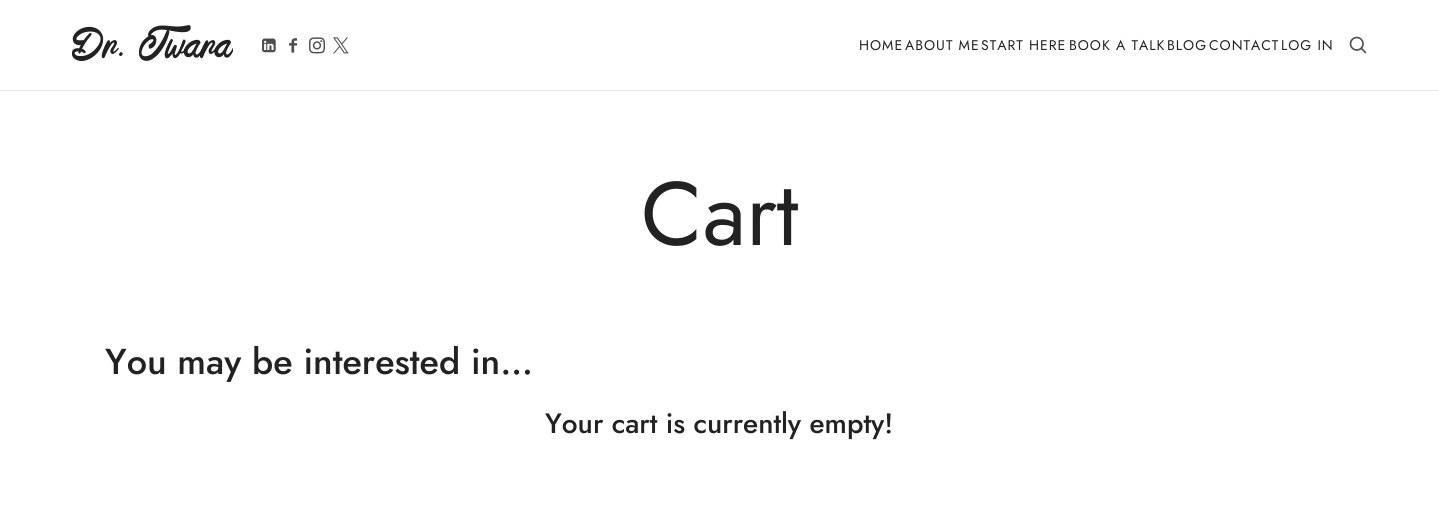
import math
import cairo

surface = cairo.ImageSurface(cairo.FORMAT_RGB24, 1439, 516)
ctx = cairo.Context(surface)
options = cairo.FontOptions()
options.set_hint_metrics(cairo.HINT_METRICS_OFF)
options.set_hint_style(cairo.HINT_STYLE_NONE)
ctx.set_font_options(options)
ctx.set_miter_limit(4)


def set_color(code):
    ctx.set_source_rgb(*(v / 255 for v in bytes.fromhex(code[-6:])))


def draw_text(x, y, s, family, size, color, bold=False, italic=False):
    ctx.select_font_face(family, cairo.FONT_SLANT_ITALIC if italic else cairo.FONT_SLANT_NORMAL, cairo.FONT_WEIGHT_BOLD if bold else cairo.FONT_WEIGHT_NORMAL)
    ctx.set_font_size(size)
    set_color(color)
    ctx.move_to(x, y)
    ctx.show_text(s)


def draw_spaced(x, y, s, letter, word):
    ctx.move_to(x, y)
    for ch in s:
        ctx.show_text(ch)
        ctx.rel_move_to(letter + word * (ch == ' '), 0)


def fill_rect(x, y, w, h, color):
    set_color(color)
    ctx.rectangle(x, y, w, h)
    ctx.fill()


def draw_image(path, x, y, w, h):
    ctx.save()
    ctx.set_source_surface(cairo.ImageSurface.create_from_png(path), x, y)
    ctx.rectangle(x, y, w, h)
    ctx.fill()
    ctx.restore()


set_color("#ffffff")
ctx.paint()
ctx.save()
ctx.rectangle(72, 0, 161, 90)
ctx.clip()
draw_text(72, 61, "Dr. Twara", "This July", 48, "#222222")
ctx.restore()
draw_image("assets/img1.png", 262, 38, 14, 15)
draw_image("assets/img2.png", 289, 38, 8, 15)
draw_image("assets/img3.png", 309, 37, 16, 17)
draw_image("assets/img4.png", 333, 37, 16, 17)
ctx.select_font_face("Jost")
ctx.set_font_size(14)
set_color("#222222")
draw_spaced(859, 50, "HOME", 1, 0)
draw_spaced(905, 50, "ABOUT ME", 1, 0)
draw_spaced(981, 50, "START HERE", 1, 0)
draw_spaced(1069, 50, "BOOK A TALK", 1, 0)
draw_spaced(1167, 50, "BLOG", 1, 0)
draw_spaced(1209, 50, "CONTACT", 1, 0)
draw_spaced(1281, 50, "LOG IN", 1, 0)
draw_image("assets/img5.png", 1349, 36, 18, 18)
fill_rect(0, 90, 1439, 1, "#e5e5e5")
draw_text(641, 245, "Cart", "Jost", 90, "#222222")
draw_text(105, 374, "You may be interested in…", "Jost Medium", 36, "#222222")
draw_text(545, 433, "Your cart is currently empty!", "Jost Medium", 28, "#222222")
surface.write_to_png("output.png")
